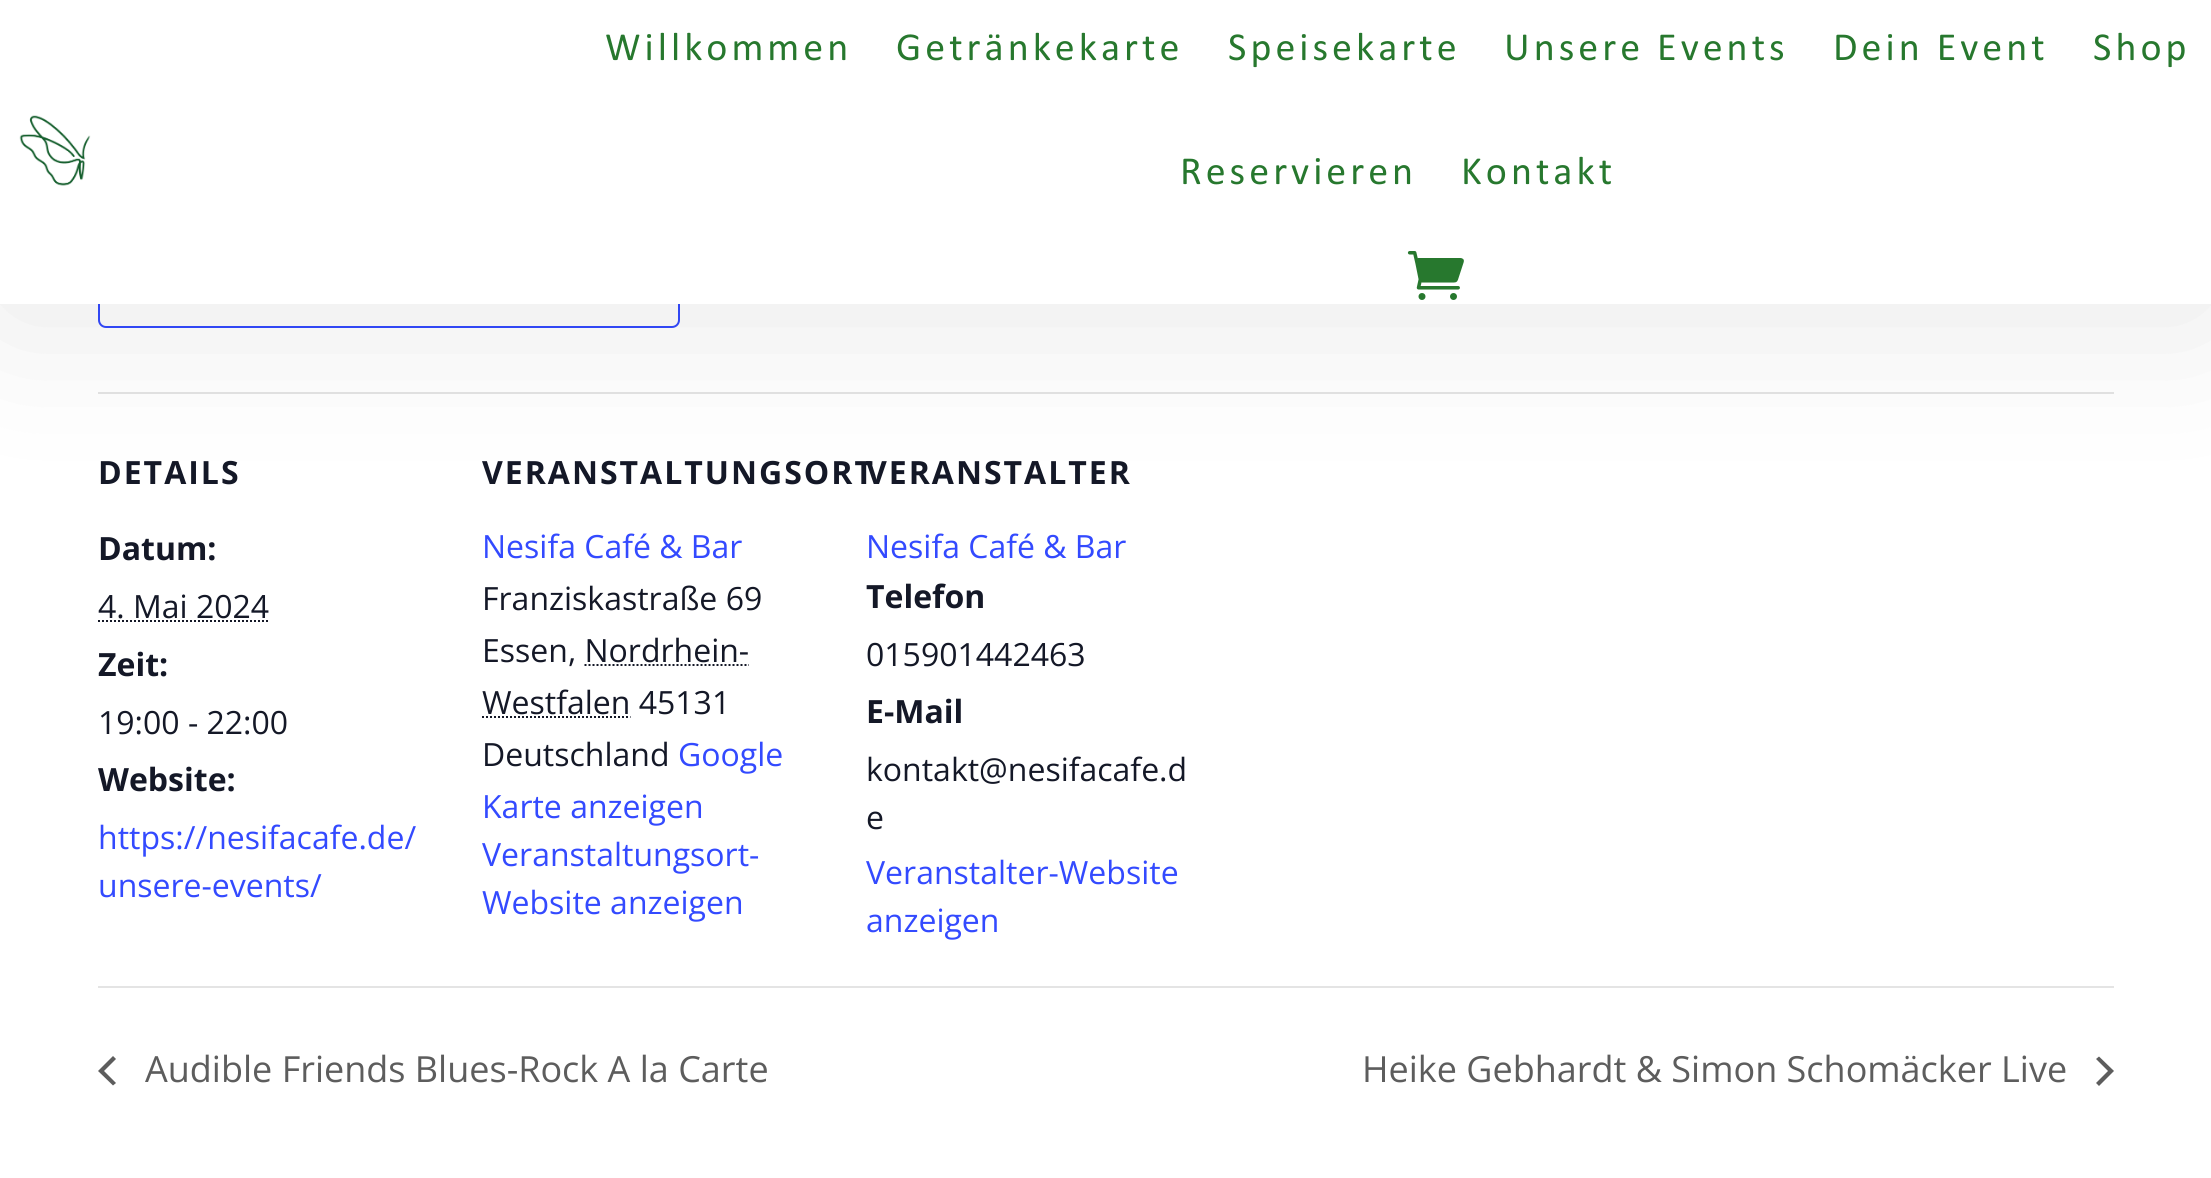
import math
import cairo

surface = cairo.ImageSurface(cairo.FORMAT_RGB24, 2211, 1178)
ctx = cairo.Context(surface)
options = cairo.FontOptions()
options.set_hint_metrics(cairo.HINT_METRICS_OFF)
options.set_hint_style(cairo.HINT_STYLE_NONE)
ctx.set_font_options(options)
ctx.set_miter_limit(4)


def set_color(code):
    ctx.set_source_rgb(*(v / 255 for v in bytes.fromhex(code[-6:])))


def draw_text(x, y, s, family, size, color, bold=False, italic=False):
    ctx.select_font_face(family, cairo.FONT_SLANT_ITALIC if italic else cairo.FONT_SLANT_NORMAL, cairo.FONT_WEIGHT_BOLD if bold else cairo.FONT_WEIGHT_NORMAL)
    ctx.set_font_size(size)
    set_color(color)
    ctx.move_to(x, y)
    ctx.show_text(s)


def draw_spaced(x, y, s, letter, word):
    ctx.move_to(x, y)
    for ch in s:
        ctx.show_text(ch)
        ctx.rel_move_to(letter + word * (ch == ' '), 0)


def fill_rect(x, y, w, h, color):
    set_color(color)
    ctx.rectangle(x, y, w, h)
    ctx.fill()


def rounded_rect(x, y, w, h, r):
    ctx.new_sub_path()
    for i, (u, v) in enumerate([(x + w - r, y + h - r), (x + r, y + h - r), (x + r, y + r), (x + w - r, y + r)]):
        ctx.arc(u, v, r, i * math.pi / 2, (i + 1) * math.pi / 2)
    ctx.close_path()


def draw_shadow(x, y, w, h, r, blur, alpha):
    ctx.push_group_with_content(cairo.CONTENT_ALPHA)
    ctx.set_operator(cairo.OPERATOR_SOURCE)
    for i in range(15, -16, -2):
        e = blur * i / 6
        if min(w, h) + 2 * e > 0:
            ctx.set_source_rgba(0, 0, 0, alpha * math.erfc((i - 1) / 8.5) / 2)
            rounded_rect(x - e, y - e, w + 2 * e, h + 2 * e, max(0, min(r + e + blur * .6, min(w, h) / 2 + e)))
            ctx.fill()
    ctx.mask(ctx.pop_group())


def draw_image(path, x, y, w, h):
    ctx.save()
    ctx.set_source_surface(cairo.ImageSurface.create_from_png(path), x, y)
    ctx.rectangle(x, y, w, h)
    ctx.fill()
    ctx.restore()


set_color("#ffffff")
ctx.paint()
rounded_rect(99, 241, 580, 86, 7)
set_color("#334aff")
ctx.stroke()
fill_rect(98, 392, 2016, 2, "#e4e4e4")
set_color("#000000")
draw_shadow(0, 10, 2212, 304, 0, 80, 0.1)
fill_rect(0, 0, 2211, 304, "#ffffff")
draw_image("assets/img1.png", 19, 115, 72, 71)
ctx.select_font_face("Calibri")
ctx.set_font_size(40)
set_color("#27782e")
draw_spaced(605, 60, "Willkommen", 4, 0)
draw_spaced(896, 60, "Getränkekarte", 4, 0)
draw_spaced(1228, 60, "Speisekarte", 4, 0)
draw_spaced(1504, 60, "Unsere Events", 4, 0)
draw_spaced(1833, 60, "Dein Event", 4, 0)
draw_spaced(2093, 60, "Shop", 4, 0)
draw_spaced(1180, 184, "Reservieren", 4, 0)
draw_spaced(1461, 184, "Kontakt", 4, 0)
draw_image("assets/img2.png", 1407, 251, 57, 49)
ctx.select_font_face("Open Sans", cairo.FONT_SLANT_NORMAL, cairo.FONT_WEIGHT_BOLD)
ctx.set_font_size(32)
set_color("#141827")
draw_spaced(98, 484, "DETAILS", 2, 0)
draw_text(98, 560, "Datum:", "Open Sans", 32, "#141827", bold=True)
draw_text(98, 618, "4. Mai 2024", "Open Sans", 32, "#141827")
ctx.new_path()
ctx.move_to(98, 621)
ctx.line_to(269, 621)
ctx.set_dash([2, 2])
ctx.stroke()
draw_text(98, 676, "Zeit:", "Open Sans", 32, "#141827", bold=True)
draw_text(98, 734, "19:00 - 22:00", "Open Sans", 32, "#141827")
draw_text(98, 791, "Website:", "Open Sans", 32, "#141827", bold=True)
draw_text(98, 849, "https://nesifacafe.de/", "Open Sans", 32, "#334aff")
draw_text(98, 897, "unsere-events/", "Open Sans", 32, "#334aff")
ctx.select_font_face("Open Sans", cairo.FONT_SLANT_NORMAL, cairo.FONT_WEIGHT_BOLD)
set_color("#141827")
draw_spaced(482, 484, "VERANSTALTUNGSORT", 2, 0)
draw_text(482, 558, "Nesifa Café & Bar", "Open Sans", 32, "#334aff")
draw_text(482, 610, "Franziskastraße 69", "Open Sans", 32, "#141827")
draw_text(482, 662, "Essen, Nordrhein-", "Open Sans", 32, "#141827")
ctx.new_path()
ctx.move_to(584.5, 665)
ctx.line_to(749, 665)
ctx.stroke()
draw_text(482, 714, "Westfalen 45131", "Open Sans", 32, "#141827")
ctx.new_path()
ctx.move_to(482, 717)
ctx.line_to(630.5, 717)
ctx.stroke()
draw_text(482, 766, "Deutschland", "Open Sans", 32, "#141827")
draw_text(678, 766, "Google", "Open Sans", 32, "#334aff")
draw_text(482, 818, "Karte anzeigen", "Open Sans", 32, "#334aff")
draw_text(482, 866, "Veranstaltungsort-", "Open Sans", 32, "#334aff")
draw_text(482, 914, "Website anzeigen", "Open Sans", 32, "#334aff")
ctx.select_font_face("Open Sans", cairo.FONT_SLANT_NORMAL, cairo.FONT_WEIGHT_BOLD)
set_color("#141827")
draw_spaced(866, 484, "VERANSTALTER", 2, 0)
draw_text(866, 558, "Nesifa Café & Bar", "Open Sans", 32, "#334aff")
draw_text(866, 608, "Telefon", "Open Sans", 32, "#141827", bold=True)
draw_text(866, 666, "015901442463", "Open Sans", 32, "#141827")
draw_text(866, 723, "E-Mail", "Open Sans", 32, "#141827", bold=True)
draw_text(866, 781, "kontakt@nesifacafe.d", "Open Sans", 32, "#141827")
draw_text(866, 829, "e", "Open Sans", 32, "#141827")
draw_text(866, 884, "Veranstalter-Website", "Open Sans", 32, "#334aff")
draw_text(866, 932, "anzeigen", "Open Sans", 32, "#334aff")
fill_rect(98, 986, 2016, 2, "#e4e4e4")
set_color("#5d5d5d")
ctx.new_path()
ctx.move_to(116, 1083)
ctx.line_to(113, 1085.5)
ctx.line_to(98, 1071)
ctx.line_to(113, 1056)
ctx.line_to(116, 1059)
ctx.line_to(104, 1071)
ctx.close_path()
ctx.fill()
draw_text(145, 1082, "Audible Friends Blues-Rock A la Carte", "Open Sans", 36, "#5d5d5d")
draw_text(1362, 1082, "Heike Gebhardt & Simon Schomäcker Live", "Open Sans", 36, "#5d5d5d")
ctx.new_path()
ctx.move_to(2096, 1059)
ctx.line_to(2099, 1056.5)
ctx.line_to(2114, 1071)
ctx.line_to(2099, 1086)
ctx.line_to(2096, 1083)
ctx.line_to(2108, 1071)
ctx.close_path()
ctx.fill()
surface.write_to_png("output.png")
